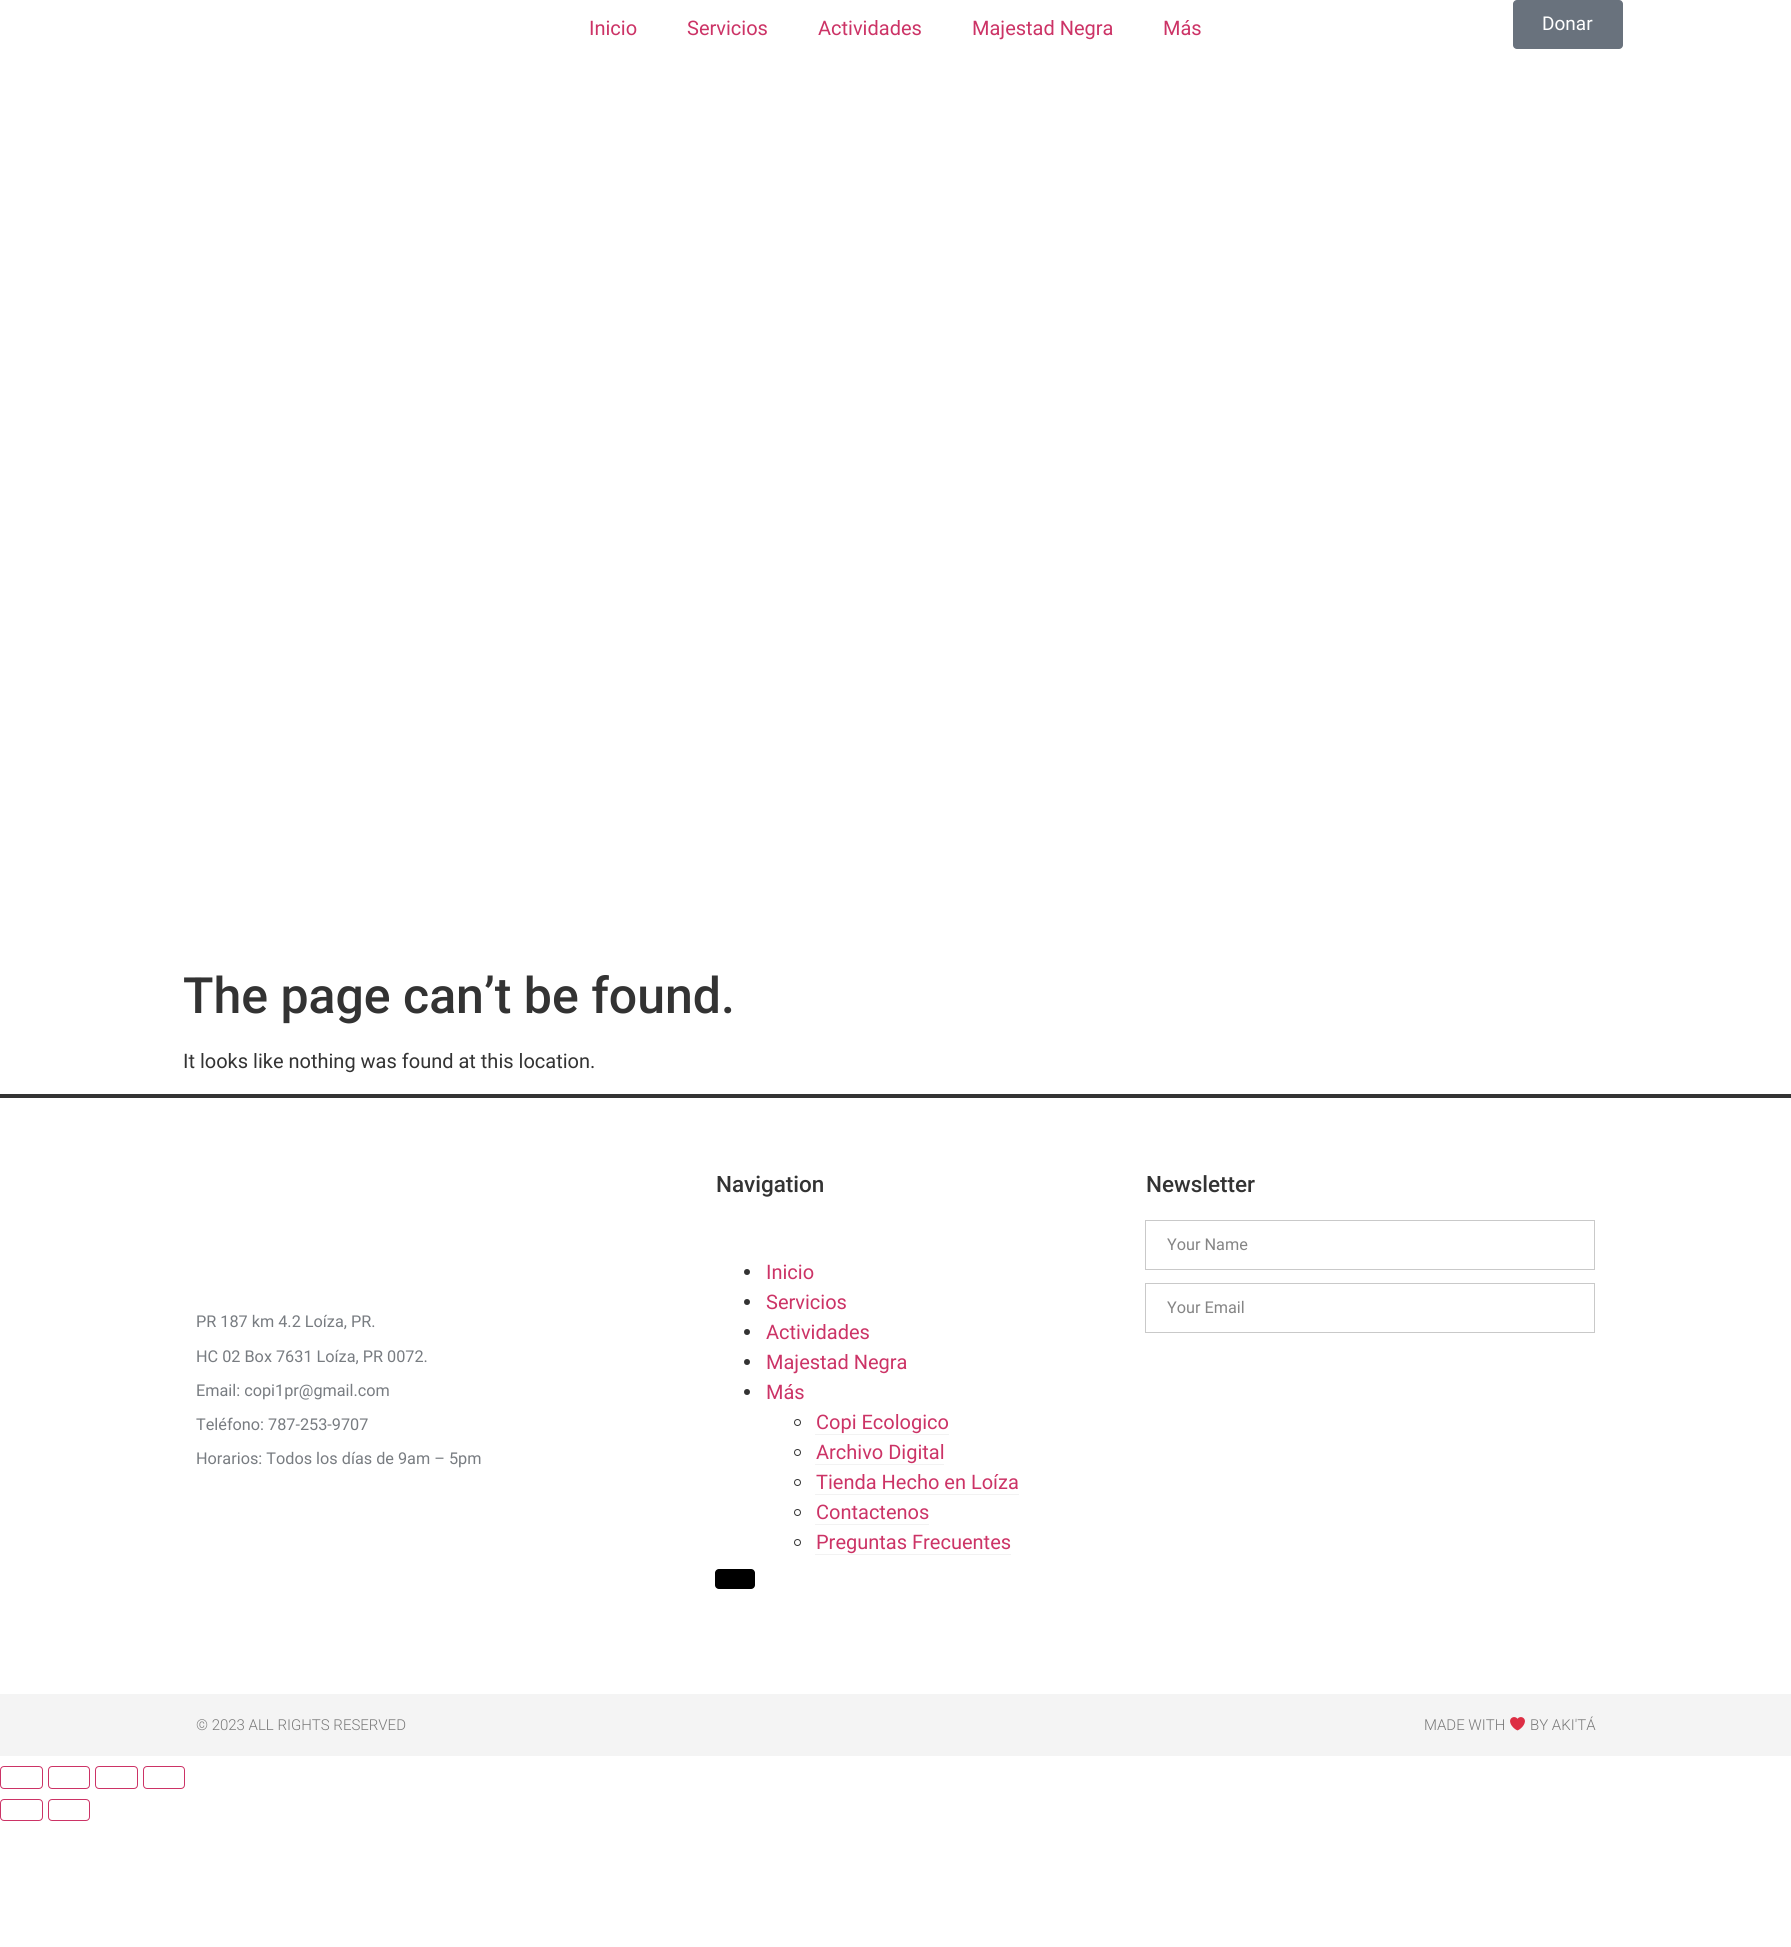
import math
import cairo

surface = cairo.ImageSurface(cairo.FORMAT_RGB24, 1791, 1947)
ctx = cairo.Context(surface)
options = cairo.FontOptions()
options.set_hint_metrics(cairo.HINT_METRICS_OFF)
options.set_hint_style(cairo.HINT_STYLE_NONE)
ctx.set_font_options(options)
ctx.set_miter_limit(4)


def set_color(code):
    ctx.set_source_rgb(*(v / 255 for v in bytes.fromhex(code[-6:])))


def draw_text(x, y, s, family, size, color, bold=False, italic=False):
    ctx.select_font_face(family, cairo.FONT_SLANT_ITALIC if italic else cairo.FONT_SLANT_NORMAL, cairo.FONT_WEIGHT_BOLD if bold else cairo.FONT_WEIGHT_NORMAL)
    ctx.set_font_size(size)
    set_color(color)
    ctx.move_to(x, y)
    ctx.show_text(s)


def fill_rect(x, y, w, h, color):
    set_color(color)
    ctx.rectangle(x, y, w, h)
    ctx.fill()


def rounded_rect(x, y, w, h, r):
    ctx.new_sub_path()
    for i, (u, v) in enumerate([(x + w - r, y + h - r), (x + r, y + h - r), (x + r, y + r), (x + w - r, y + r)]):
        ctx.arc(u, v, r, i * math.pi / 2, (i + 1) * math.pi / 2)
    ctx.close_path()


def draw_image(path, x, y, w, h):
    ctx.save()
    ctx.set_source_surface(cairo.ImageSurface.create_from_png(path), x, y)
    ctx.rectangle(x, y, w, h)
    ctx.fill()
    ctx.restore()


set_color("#ffffff")
ctx.paint()
draw_text(589, 35, "Inicio", "Roboto", 20, "#cc3366")
draw_text(687, 35, "Servicios", "Roboto", 20, "#cc3366")
draw_text(818, 35, "Actividades", "Roboto", 20, "#cc3366")
draw_text(972, 35, "Majestad Negra", "Roboto", 20, "#cc3366")
draw_text(1163, 35, "Más", "Roboto", 20, "#cc3366")
set_color("#69727d")
rounded_rect(1513, 0, 110, 49, 4)
ctx.fill()
draw_text(1542, 30, "Donar", "Roboto", 19, "#ffffff")
draw_text(183, 1013, "The page can’t be found.", "Roboto Medium", 50, "#333333")
draw_text(183, 1068, "It looks like nothing was found at this location.", "Roboto", 20, "#333333")
fill_rect(0, 1094, 1791, 4, "#333333")
draw_text(716, 1192, "Navigation", "Roboto Medium", 22.5, "#333333")
ctx.new_path()
ctx.arc(747, 1272, 3, 0, 2 * math.pi)
ctx.fill()
draw_text(766, 1279, "Inicio", "Roboto", 20, "#cc3366")
set_color("#333333")
ctx.new_path()
ctx.arc(747, 1302, 3, 0, 2 * math.pi)
ctx.fill()
draw_text(766, 1309, "Servicios", "Roboto", 20, "#cc3366")
set_color("#333333")
ctx.new_path()
ctx.arc(747, 1332, 3, 0, 2 * math.pi)
ctx.fill()
draw_text(766, 1339, "Actividades", "Roboto", 20, "#cc3366")
set_color("#333333")
ctx.new_path()
ctx.arc(747, 1362, 3, 0, 2 * math.pi)
ctx.fill()
draw_text(766, 1369, "Majestad Negra", "Roboto", 20, "#cc3366")
set_color("#333333")
ctx.new_path()
ctx.arc(747, 1392, 3, 0, 2 * math.pi)
ctx.fill()
draw_text(766, 1399, "Más", "Roboto", 20, "#cc3366")
ctx.new_path()
ctx.arc(797.5, 1422.5, 3, 0, 2 * math.pi)
set_color("#333333")
ctx.set_line_width(1)
ctx.stroke()
draw_text(816, 1429, "Copi Ecologico", "Roboto", 20, "#cc3366")
fill_rect(815, 1434, 134, 1, "#f2f2f2")
ctx.new_path()
ctx.arc(797.5, 1452.5, 3, 0, 2 * math.pi)
set_color("#333333")
ctx.stroke()
draw_text(816, 1459, "Archivo Digital", "Roboto", 20, "#cc3366")
fill_rect(815, 1464, 129, 1, "#f2f2f2")
ctx.new_path()
ctx.arc(797.5, 1482.5, 3, 0, 2 * math.pi)
set_color("#333333")
ctx.stroke()
draw_text(816, 1489, "Tienda Hecho en Loíza", "Roboto", 20, "#cc3366")
fill_rect(815, 1494, 204, 1, "#f2f2f2")
ctx.new_path()
ctx.arc(797.5, 1512.5, 3, 0, 2 * math.pi)
set_color("#333333")
ctx.stroke()
draw_text(816, 1519, "Contactenos", "Roboto", 20, "#cc3366")
fill_rect(815, 1524, 114, 1, "#f2f2f2")
ctx.new_path()
ctx.arc(797.5, 1542.5, 3, 0, 2 * math.pi)
set_color("#333333")
ctx.stroke()
draw_text(816, 1549, "Preguntas Frecuentes", "Roboto", 20, "#cc3366")
fill_rect(815, 1554, 196, 1, "#f2f2f2")
set_color("#000000")
rounded_rect(715, 1569, 40, 20, 4)
ctx.fill()
draw_text(1146, 1192, "Newsletter", "Roboto Medium", 22.5, "#333333")
ctx.rectangle(1145.5, 1220.5, 449, 49)
set_color("#c9c9c9")
ctx.stroke()
draw_text(1167, 1250, "Your Name", "Roboto", 16.25, "#858585")
ctx.rectangle(1145.5, 1283.5, 449, 49)
set_color("#c9c9c9")
ctx.stroke()
draw_text(1167, 1313, "Your Email", "Roboto", 16.25, "#858585")
draw_text(196, 1327, "PR 187 km 4.2 Loíza, PR.", "Roboto", 16.25, "#787c81")
draw_text(196, 1362, "HC 02 Box 7631 Loíza, PR 0072.", "Roboto", 16.25, "#787c81")
draw_text(196, 1396, "Email: copi1pr@gmail.com", "Roboto", 16.25, "#787c81")
draw_text(196, 1430, "Teléfono: 787-253-9707", "Roboto", 16.25, "#787c81")
draw_text(196, 1464, "Horarios: Todos los días de 9am – 5pm", "Roboto", 16.25, "#787c81")
fill_rect(0, 1694, 1791, 62, "#f4f4f4")
draw_text(196, 1730, "© 2023 ALL RIGHTS RESERVED", "Roboto Light", 15, "#7a7a7a")
draw_text(1424, 1730, "MADE WITH", "Roboto Light", 15, "#7a7a7a")
draw_image("assets/img1.png", 1510, 1717, 15, 14)
draw_text(1530, 1730, "BY AKI'TÁ", "Roboto Light", 15, "#7a7a7a")
rounded_rect(0.5, 1766.5, 42, 22, 3.5)
set_color("#cc3366")
ctx.stroke()
rounded_rect(48.5, 1766.5, 41, 22, 3.5)
ctx.stroke()
rounded_rect(95.5, 1766.5, 42, 22, 3.5)
ctx.stroke()
rounded_rect(143.5, 1766.5, 41, 22, 3.5)
ctx.stroke()
rounded_rect(0.5, 1799.5, 42, 21, 3.5)
ctx.stroke()
rounded_rect(48.5, 1799.5, 41, 21, 3.5)
ctx.stroke()
surface.write_to_png("output.png")
